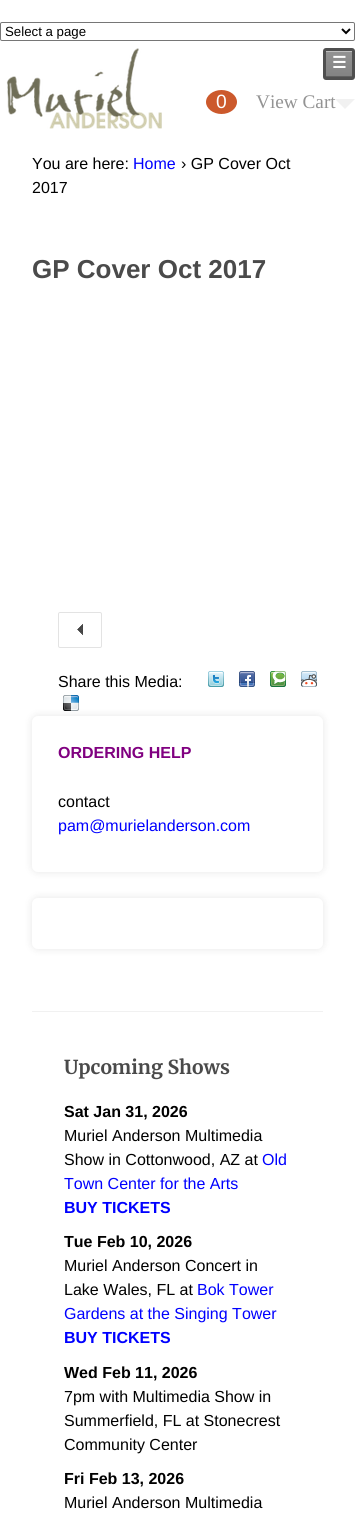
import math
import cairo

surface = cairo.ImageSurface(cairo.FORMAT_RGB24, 355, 1518)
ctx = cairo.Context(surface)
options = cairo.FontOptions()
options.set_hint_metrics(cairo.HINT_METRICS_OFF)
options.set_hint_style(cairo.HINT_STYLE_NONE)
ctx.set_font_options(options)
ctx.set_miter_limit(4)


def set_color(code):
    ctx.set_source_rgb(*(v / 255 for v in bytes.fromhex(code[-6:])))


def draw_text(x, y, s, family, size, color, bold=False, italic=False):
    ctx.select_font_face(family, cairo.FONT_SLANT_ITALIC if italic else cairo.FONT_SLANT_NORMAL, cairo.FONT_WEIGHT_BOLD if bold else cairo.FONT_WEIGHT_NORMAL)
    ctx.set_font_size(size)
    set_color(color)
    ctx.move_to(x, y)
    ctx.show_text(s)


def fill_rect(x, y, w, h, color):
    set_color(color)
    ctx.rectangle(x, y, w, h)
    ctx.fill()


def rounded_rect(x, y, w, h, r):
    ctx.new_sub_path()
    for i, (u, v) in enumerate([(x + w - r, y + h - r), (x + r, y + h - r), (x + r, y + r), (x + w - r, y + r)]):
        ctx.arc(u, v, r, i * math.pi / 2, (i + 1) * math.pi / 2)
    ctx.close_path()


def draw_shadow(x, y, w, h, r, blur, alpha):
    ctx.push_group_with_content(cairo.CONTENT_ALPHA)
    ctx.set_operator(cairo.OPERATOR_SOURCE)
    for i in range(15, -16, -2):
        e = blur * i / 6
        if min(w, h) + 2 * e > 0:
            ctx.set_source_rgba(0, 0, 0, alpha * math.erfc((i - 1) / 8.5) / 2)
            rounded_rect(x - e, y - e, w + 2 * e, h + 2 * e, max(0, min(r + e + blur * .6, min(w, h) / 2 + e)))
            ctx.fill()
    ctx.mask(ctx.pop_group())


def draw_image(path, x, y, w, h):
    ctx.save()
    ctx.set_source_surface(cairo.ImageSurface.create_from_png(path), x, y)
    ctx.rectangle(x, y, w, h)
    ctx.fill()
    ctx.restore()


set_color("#ffffff")
ctx.paint()
rounded_rect(0.5, 22.5, 354, 18, 1.5)
set_color("#767676")
ctx.set_line_width(1)
ctx.stroke()
ctx.new_path()
ctx.move_to(342, 29)
ctx.line_to(346, 33)
ctx.line_to(350, 29)
set_color("#000000")
ctx.set_line_width(2)
ctx.stroke()
draw_text(5, 36, "Select a page", "Liberation Sans", 13.25, "#000000")
draw_image("assets/img1.png", 6, 48, 156, 81)
gradient = cairo.LinearGradient(339, 51, 339, 77)
gradient.add_color_stop_rgba(0, 0.576, 0.576, 0.576, 1)
gradient.add_color_stop_rgba(1, 0.51, 0.51, 0.51, 1)
ctx.set_source(gradient)
ctx.rectangle(326, 52, 26, 24)
ctx.fill()
fill_rect(326, 76, 26, 1, "#606060")
fill_rect(326, 51, 26, 1, "#bebebe")
rounded_rect(324.5, 49.5, 29, 29, 1.5)
set_color("#4f4f4f")
ctx.set_line_width(3)
ctx.stroke()
draw_text(332, 68, "☰", "DejaVu Sans", 16, "#ffffff", bold=True)
set_color("#cc592c")
ctx.new_path()
ctx.move_to(221.5, 90)
ctx.curve_to(230, 90, 237, 95.5, 237, 102)
ctx.curve_to(237, 108.5, 230, 114, 221.5, 114)
ctx.curve_to(213, 114, 206, 108.5, 206, 102)
ctx.curve_to(206, 95.5, 213, 90, 221.5, 90)
ctx.close_path()
ctx.fill()
draw_text(216, 108, "0", "Liberation Sans", 19.25, "#ffffff")
draw_text(256, 108, "View Cart", "Liberation Serif", 19.25, "#939393")
set_color("#f1f1f1")
ctx.new_path()
ctx.move_to(335, 99)
ctx.line_to(355, 99)
ctx.line_to(345, 109)
ctx.close_path()
ctx.fill()
draw_text(32, 169, "You are here:", "Liberation Sans", 16, "#000000")
draw_text(133, 169, "Home", "Liberation Sans", 16, "#0000ff")
draw_text(181, 169, "› GP Cover Oct", "Liberation Sans", 16, "#000000")
draw_text(32, 193, "2017", "Liberation Sans", 16, "#000000")
draw_text(32, 278, "GP Cover Oct 2017", "Liberation Sans", 26, "#4a4a4a", bold=True)
draw_image("assets/img2.png", 77, 624, 6, 11)
rounded_rect(58.5, 612.5, 43, 35, 1.5)
set_color("#e3e3e3")
ctx.set_line_width(1)
ctx.stroke()
draw_text(58, 687, "Share this Media:", "Liberation Sans", 16, "#000000")
draw_image("assets/img3.png", 208, 671, 16, 16)
draw_image("assets/img4.png", 239, 671, 16, 16)
draw_image("assets/img5.png", 270, 671, 16, 16)
draw_image("assets/img6.png", 301, 671, 16, 16)
set_color("#000000")
draw_shadow(32, 716, 291, 156, 6, 4, 0.1)
draw_image("assets/img7.png", 63, 695, 16, 16)
set_color("#ffffff")
rounded_rect(32, 716, 291, 156, 6)
ctx.fill()
draw_text(58, 758, "ORDERING HELP", "Liberation Sans", 16, "#800080", bold=True)
draw_text(58, 807, "contact", "Liberation Sans", 16, "#000000")
draw_text(58, 831, "pam@murielanderson.com", "Liberation Sans", 16, "#0000ff")
set_color("#000000")
draw_shadow(32, 898, 291, 51, 6, 4, 0.1)
set_color("#ffffff")
rounded_rect(32, 898, 291, 51, 6)
ctx.fill()
fill_rect(32, 1011, 291, 1, "#f1f1f1")
draw_text(64, 1074, "Upcoming Shows", "Merriweather", 19.25, "#4a4a4a", bold=True)
draw_text(64, 1117, "Sat Jan 31, 2026", "Liberation Sans", 16, "#000000", bold=True)
draw_text(64, 1141, "Muriel Anderson Multimedia", "Liberation Sans", 16, "#000000")
draw_text(64, 1165, "Show in Cottonwood, AZ at", "Liberation Sans", 16, "#000000")
draw_text(262, 1165, "Old", "Liberation Sans", 16, "#0000ff")
draw_text(64, 1189, "Town Center for the Arts", "Liberation Sans", 16, "#0000ff")
draw_text(64, 1213, "BUY TICKETS", "Liberation Sans", 16, "#0000ff", bold=True)
draw_text(64, 1247, "Tue Feb 10, 2026", "Liberation Sans", 16, "#000000", bold=True)
draw_text(64, 1271, "Muriel Anderson Concert in", "Liberation Sans", 16, "#000000")
draw_text(64, 1295, "Lake Wales, FL at", "Liberation Sans", 16, "#000000")
draw_text(197, 1295, "Bok Tower", "Liberation Sans", 16, "#0000ff")
draw_text(64, 1319, "Gardens at the Singing Tower", "Liberation Sans", 16, "#0000ff")
draw_text(64, 1343, "BUY TICKETS", "Liberation Sans", 16, "#0000ff", bold=True)
draw_text(64, 1378, "Wed Feb 11, 2026", "Liberation Sans", 16, "#000000", bold=True)
draw_text(64, 1402, "7pm with Multimedia Show in", "Liberation Sans", 16, "#000000")
draw_text(64, 1426, "Summerfield, FL at Stonecrest", "Liberation Sans", 16, "#000000")
draw_text(64, 1450, "Community Center", "Liberation Sans", 16, "#000000")
draw_text(64, 1484, "Fri Feb 13, 2026", "Liberation Sans", 16, "#000000", bold=True)
draw_text(64, 1508, "Muriel Anderson Multimedia", "Liberation Sans", 16, "#000000")
surface.write_to_png("output.png")
